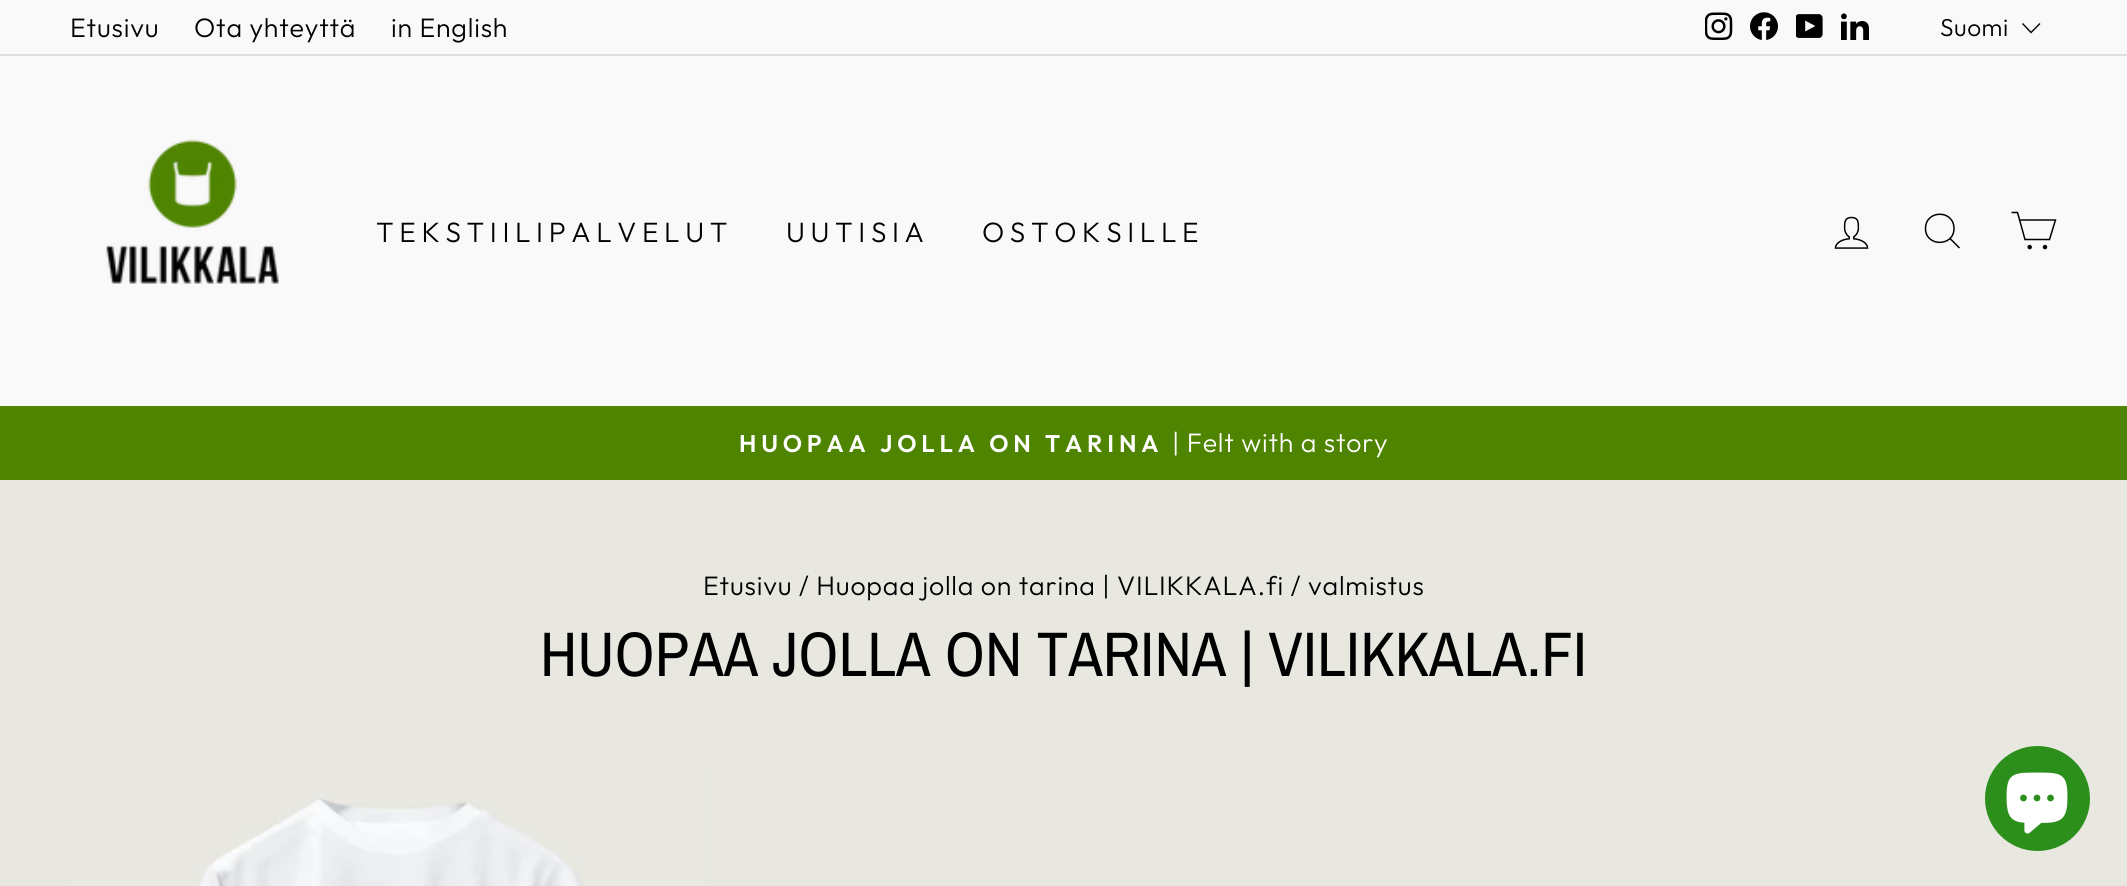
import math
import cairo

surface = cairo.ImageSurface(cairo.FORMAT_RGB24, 2127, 886)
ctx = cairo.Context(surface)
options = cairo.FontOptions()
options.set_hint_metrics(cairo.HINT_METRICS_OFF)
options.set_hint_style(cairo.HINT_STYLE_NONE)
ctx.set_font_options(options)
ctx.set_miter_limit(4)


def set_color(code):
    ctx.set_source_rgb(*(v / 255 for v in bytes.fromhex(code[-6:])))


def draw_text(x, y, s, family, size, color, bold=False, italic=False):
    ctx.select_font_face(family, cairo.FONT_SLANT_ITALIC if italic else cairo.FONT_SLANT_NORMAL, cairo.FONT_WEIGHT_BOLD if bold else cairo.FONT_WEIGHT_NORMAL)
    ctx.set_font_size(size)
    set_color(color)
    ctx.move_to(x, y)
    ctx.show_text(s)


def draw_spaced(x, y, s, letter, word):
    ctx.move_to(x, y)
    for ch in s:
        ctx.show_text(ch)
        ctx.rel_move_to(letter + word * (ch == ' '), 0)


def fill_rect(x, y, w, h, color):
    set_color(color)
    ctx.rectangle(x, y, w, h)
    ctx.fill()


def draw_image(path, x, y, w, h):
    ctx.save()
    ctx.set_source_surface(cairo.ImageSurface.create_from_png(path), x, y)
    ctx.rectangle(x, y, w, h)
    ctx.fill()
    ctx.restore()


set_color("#e8e8e1")
ctx.paint()
fill_rect(0, 0, 2127, 54, "#f9f9f9")
ctx.select_font_face("Outfit Light")
ctx.set_font_size(26.75)
set_color("#000000")
draw_spaced(70, 37, "Etusivu", 0.8, 0)
draw_spaced(194, 37, "Ota yhteyttä", 0.8, 0)
draw_spaced(391, 37, "in English", 0.8, 0)
draw_image("assets/img1.png", 1705, 12, 28, 28)
draw_image("assets/img2.png", 1750, 12, 28, 28)
draw_image("assets/img3.png", 1796, 14, 27, 24)
draw_image("assets/img4.png", 1841, 13, 28, 27)
ctx.set_font_size(24.5)
draw_spaced(1940, 36, "Suomi", 0.5, 0)
ctx.new_path()
ctx.move_to(2022.5, 23.5)
ctx.line_to(2031, 32.5)
ctx.line_to(2040, 23.5)
ctx.set_line_width(1.4)
ctx.stroke()
fill_rect(0, 56, 2127, 350, "#f9f9f9")
fill_rect(0, 54, 2127, 2, "#e0e0e0")
draw_image("assets/img5.png", 106, 139, 174, 145)
ctx.set_font_size(28)
set_color("#000000")
draw_spaced(376, 242, "TEKSTIILIPALVELUT", 5.6, 0)
draw_spaced(786, 242, "UUTISIA", 5.6, 0)
draw_spaced(982, 242, "OSTOKSILLE", 5.6, 0)
draw_image("assets/img6.png", 1834, 216, 35, 33)
ctx.new_path()
ctx.move_to(1954, 228.5)
ctx.curve_to(1954, 247, 1925.5, 247, 1925.5, 228.5)
ctx.curve_to(1925.5, 209.5, 1954, 209.5, 1954, 228.5)
ctx.close_path()
ctx.move_to(1959.5, 248)
ctx.line_to(1950, 238.5)
ctx.set_line_width(1.5)
ctx.stroke()
ctx.new_path()
ctx.move_to(2019.5, 220)
ctx.line_to(2055.5, 220)
ctx.line_to(2049.5, 239.5)
ctx.line_to(2025, 239.5)
ctx.line_to(2017.5, 212.5)
ctx.line_to(2011.5, 212.5)
ctx.stroke()
ctx.arc(2029.7, 247.1, 1.5, 0, 2 * math.pi)
ctx.fill_preserve()
ctx.stroke()
ctx.arc(2045, 247.1, 1.5, 0, 2 * math.pi)
ctx.fill_preserve()
ctx.stroke()
fill_rect(0, 406, 2127, 74, "#4e8400")
ctx.select_font_face("Outfit SemiBold")
ctx.set_font_size(24.1)
set_color("#ffffff")
draw_spaced(739, 452, "HUOPAA JOLLA ON TARINA", 4.8, 0)
ctx.select_font_face("Outfit Light")
ctx.set_font_size(26.75)
draw_spaced(1172, 452, "| Felt with a story", 0.8, 0)
set_color("#000000")
draw_spaced(703, 595, "Etusivu / Huopaa jolla on tarina | VILIKKALA.fi / valmistus", 0.8, 0)
draw_text(540, 676, "HUOPAA JOLLA ON TARINA | VILIKKALA.FI", "Archivo Narrow", 63, "#000000")
draw_image("assets/img7.png", 70, 772, 637, 114)
set_color("#2c8f1c")
ctx.arc(2037.5, 798.5, 52.5, 0, 2 * math.pi)
ctx.fill()
draw_image("assets/img8.png", 2006, 772, 62, 62)
surface.write_to_png("output.png")
